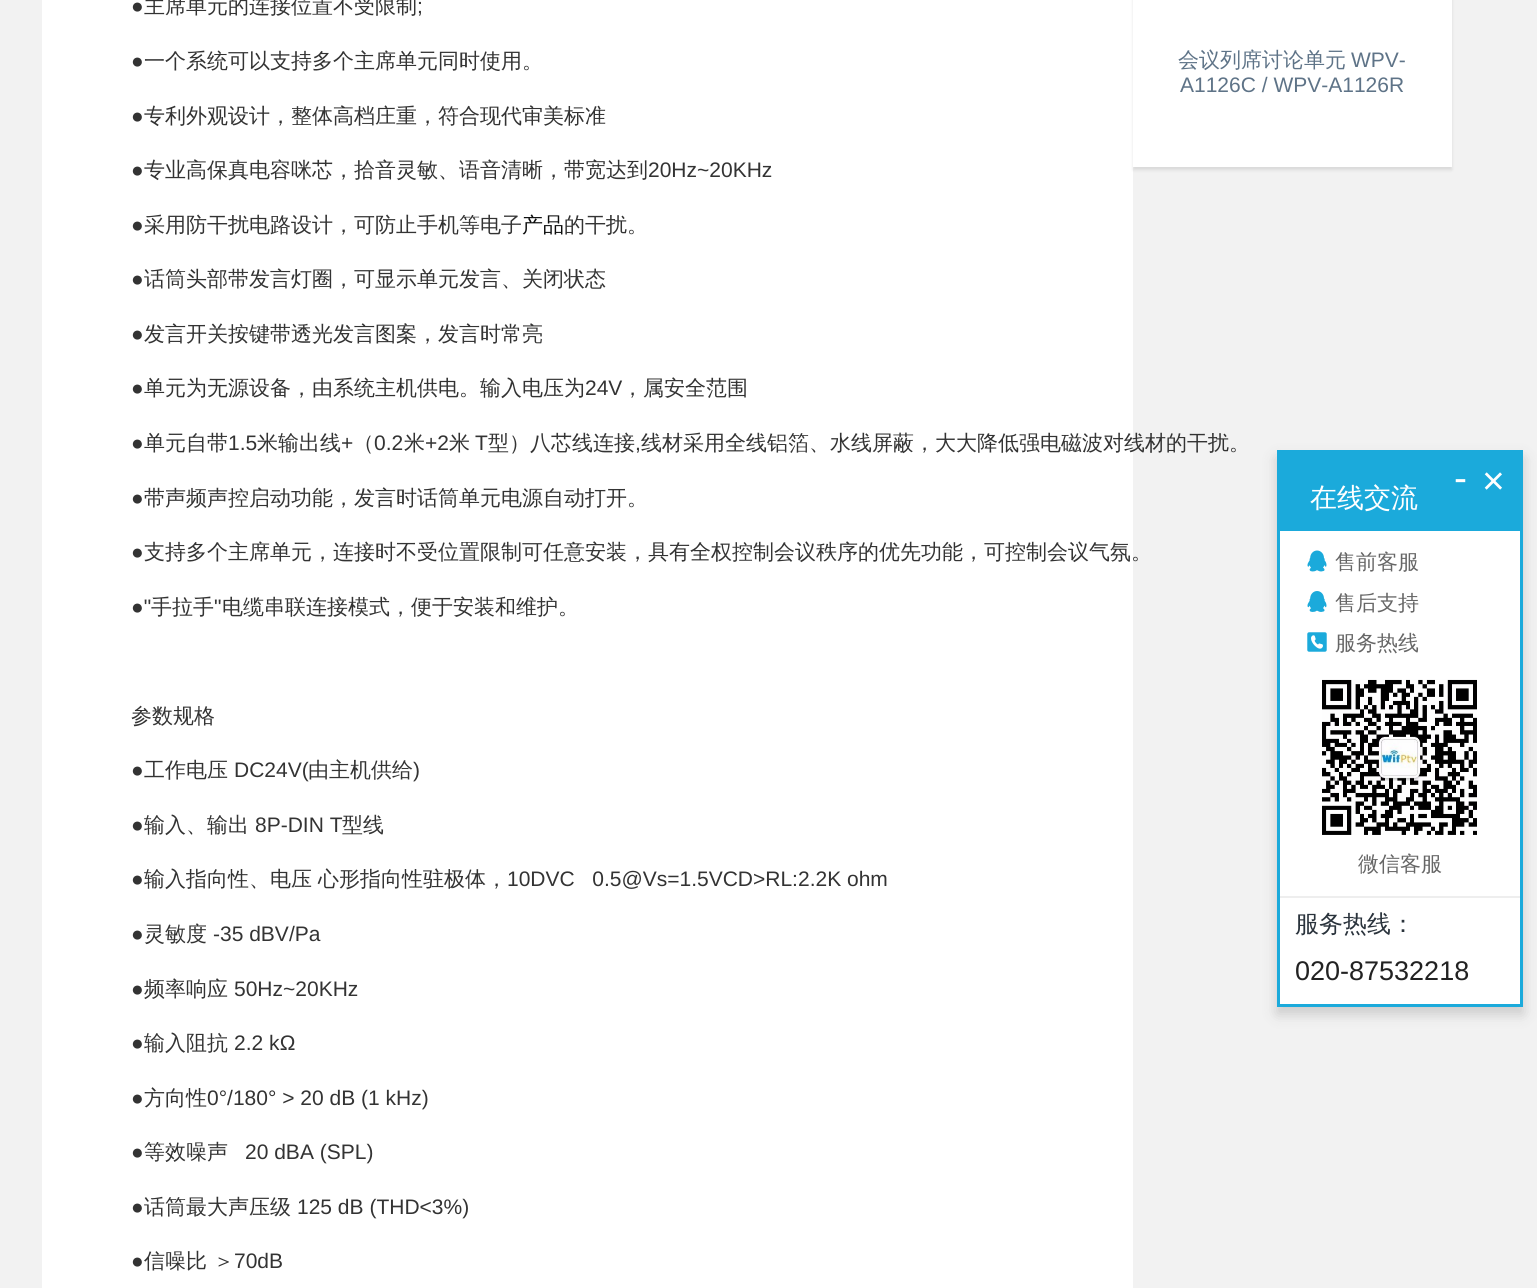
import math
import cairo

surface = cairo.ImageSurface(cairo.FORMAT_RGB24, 1537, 1288)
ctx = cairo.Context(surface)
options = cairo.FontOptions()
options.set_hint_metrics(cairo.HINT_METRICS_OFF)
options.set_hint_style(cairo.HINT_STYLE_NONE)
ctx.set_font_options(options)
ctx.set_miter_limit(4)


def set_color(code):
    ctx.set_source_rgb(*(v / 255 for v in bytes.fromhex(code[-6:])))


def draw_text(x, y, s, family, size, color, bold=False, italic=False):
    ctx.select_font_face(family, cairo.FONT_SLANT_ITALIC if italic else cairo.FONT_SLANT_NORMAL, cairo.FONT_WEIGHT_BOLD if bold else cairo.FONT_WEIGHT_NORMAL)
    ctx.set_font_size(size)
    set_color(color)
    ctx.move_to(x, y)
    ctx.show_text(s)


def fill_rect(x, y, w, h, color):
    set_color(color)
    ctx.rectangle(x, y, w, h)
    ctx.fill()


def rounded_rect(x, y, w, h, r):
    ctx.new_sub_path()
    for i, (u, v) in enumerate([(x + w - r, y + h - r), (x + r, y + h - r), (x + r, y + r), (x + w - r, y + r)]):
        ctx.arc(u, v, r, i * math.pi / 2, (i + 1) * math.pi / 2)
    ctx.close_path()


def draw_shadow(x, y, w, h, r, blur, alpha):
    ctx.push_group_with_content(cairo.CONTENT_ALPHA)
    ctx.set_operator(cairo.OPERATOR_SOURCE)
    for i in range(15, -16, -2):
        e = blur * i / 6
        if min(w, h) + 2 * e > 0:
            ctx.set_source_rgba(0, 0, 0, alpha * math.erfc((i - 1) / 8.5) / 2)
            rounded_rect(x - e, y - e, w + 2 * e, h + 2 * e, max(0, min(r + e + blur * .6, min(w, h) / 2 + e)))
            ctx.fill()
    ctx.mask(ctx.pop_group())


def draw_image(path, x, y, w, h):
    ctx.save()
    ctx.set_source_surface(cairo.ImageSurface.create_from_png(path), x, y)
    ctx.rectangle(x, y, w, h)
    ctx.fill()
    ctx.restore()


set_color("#f2f2f2")
ctx.paint()
fill_rect(42, 0, 1091, 1288, "#ffffff")
draw_text(131, 13, "●", "Liberation Sans", 21, "#333333")
draw_text(144, 13, "主席单元的连接位置不受限制", "WenQuanYi Zen Hei Medium", 21, "#333333")
draw_text(417, 13, ";", "Liberation Sans", 21, "#333333")
draw_text(131, 68, "●", "Liberation Sans", 21, "#333333")
draw_text(144, 68, "一个系统可以支持多个主席单元同时使用。", "WenQuanYi Zen Hei Medium", 21, "#333333")
draw_text(131, 123, "●", "Liberation Sans", 21, "#333333")
draw_text(144, 123, "专利外观设计，整体高档庄重，符合现代审美标准", "WenQuanYi Zen Hei Medium", 21, "#333333")
draw_text(131, 177, "●", "Liberation Sans", 21, "#333333")
draw_text(144, 177, "专业高保真电容咪芯，拾音灵敏、语音清晰，带宽达到", "WenQuanYi Zen Hei Medium", 21, "#333333")
draw_text(648, 177, "20Hz~20KHz", "Liberation Sans", 21, "#333333")
draw_text(131, 232, "●", "Liberation Sans", 21, "#333333")
draw_text(144, 232, "采用防干扰电路设计，可防止手机等电子", "WenQuanYi Zen Hei Medium", 21, "#333333")
draw_text(522, 232, "产品", "WenQuanYi Zen Hei Medium", 21, "#0c0d0d")
draw_text(564, 232, "的干扰。", "WenQuanYi Zen Hei Medium", 21, "#333333")
draw_text(131, 286, "●", "Liberation Sans", 21, "#333333")
draw_text(144, 286, "话筒头部带发言灯圈，可显示单元发言、关闭状态", "WenQuanYi Zen Hei Medium", 21, "#333333")
draw_text(131, 341, "●", "Liberation Sans", 21, "#333333")
draw_text(144, 341, "发言开关按键带透光发言图案，发言时常亮", "WenQuanYi Zen Hei Medium", 21, "#333333")
draw_text(131, 395, "●", "Liberation Sans", 21, "#333333")
draw_text(144, 395, "单元为无源设备，由系统主机供电。输入电压为", "WenQuanYi Zen Hei Medium", 21, "#333333")
draw_text(585, 395, "24V", "Liberation Sans", 21, "#333333")
draw_text(622, 395, "，属安全范围", "WenQuanYi Zen Hei Medium", 21, "#333333")
draw_text(131, 450, "●", "Liberation Sans", 21, "#333333")
draw_text(144, 450, "单元自带", "WenQuanYi Zen Hei Medium", 21, "#333333")
draw_text(228, 450, "1.5", "Liberation Sans", 21, "#333333")
draw_text(257, 450, "米输出线", "WenQuanYi Zen Hei Medium", 21, "#333333")
draw_text(341, 450, "+", "Liberation Sans", 21, "#333333")
draw_text(353, 450, "（", "WenQuanYi Zen Hei Medium", 21, "#333333")
draw_text(374, 450, "0.2", "Liberation Sans", 21, "#333333")
draw_text(404, 450, "米", "WenQuanYi Zen Hei Medium", 21, "#333333")
draw_text(425, 450, "+2", "Liberation Sans", 21, "#333333")
draw_text(449, 450, "米", "WenQuanYi Zen Hei Medium", 21, "#333333")
draw_text(475, 450, "T", "Liberation Sans", 21, "#333333")
draw_text(488, 450, "型）八芯线连接", "WenQuanYi Zen Hei Medium", 21, "#333333")
draw_text(641, 450, "线材采用全线铝箔、水线屏蔽，大大降低强电磁波对线材的干扰。", "WenQuanYi Zen Hei Medium", 21, "#333333")
draw_text(635, 450, ",", "Liberation Sans", 21, "#333333")
draw_text(131, 505, "●", "Liberation Sans", 21, "#333333")
draw_text(144, 505, "带声频声控启动功能，发言时话筒单元电源自动打开。", "WenQuanYi Zen Hei Medium", 21, "#333333")
draw_text(131, 559, "●", "Liberation Sans", 21, "#333333")
draw_text(144, 559, "支持多个主席单元，连接时不受位置限制可任意安装，具有全权控制会议秩序的优先功能，可控制会议气氛。", "WenQuanYi Zen Hei Medium", 21, "#333333")
draw_text(131, 614, "●\"", "Liberation Sans", 21, "#333333")
draw_text(151, 614, "手拉手", "WenQuanYi Zen Hei Medium", 21, "#333333")
draw_text(214, 614, "\"", "Liberation Sans", 21, "#333333")
draw_text(222, 614, "电缆串联连接模式，便于安装和维护。", "WenQuanYi Zen Hei Medium", 21, "#333333")
draw_text(131, 723, "参数规格", "WenQuanYi Zen Hei Medium", 21, "#333333")
draw_text(131, 777, "●", "Liberation Sans", 21, "#333333")
draw_text(144, 777, "工作电压", "WenQuanYi Zen Hei Medium", 21, "#333333")
draw_text(234, 777, "DC24V(", "Liberation Sans", 21, "#333333")
draw_text(308, 777, "由主机供给", "WenQuanYi Zen Hei Medium", 21, "#333333")
draw_text(413, 777, ")", "Liberation Sans", 21, "#333333")
draw_text(131, 832, "●", "Liberation Sans", 21, "#333333")
draw_text(144, 832, "输入、输出", "WenQuanYi Zen Hei Medium", 21, "#333333")
draw_text(255, 832, "8P-DIN T", "Liberation Sans", 21, "#333333")
draw_text(342, 832, "型线", "WenQuanYi Zen Hei Medium", 21, "#333333")
draw_text(131, 886, "●", "Liberation Sans", 21, "#333333")
draw_text(144, 886, "输入指向性、电压", "WenQuanYi Zen Hei Medium", 21, "#333333")
draw_text(318, 886, "心形指向性驻极体，", "WenQuanYi Zen Hei Medium", 21, "#333333")
draw_text(507, 886, "10DVC   0.5@Vs=1.5VCD>RL:2.2K ohm", "Liberation Sans", 21, "#333333")
draw_text(131, 941, "●", "Liberation Sans", 21, "#333333")
draw_text(144, 941, "灵敏度", "WenQuanYi Zen Hei Medium", 21, "#333333")
draw_text(213, 941, "-35 dBV/Pa", "Liberation Sans", 21, "#333333")
draw_text(131, 996, "●", "Liberation Sans", 21, "#333333")
draw_text(144, 996, "频率响应", "WenQuanYi Zen Hei Medium", 21, "#333333")
draw_text(234, 996, "50Hz~20KHz", "Liberation Sans", 21, "#333333")
draw_text(131, 1050, "●", "Liberation Sans", 21, "#333333")
draw_text(144, 1050, "输入阻抗", "WenQuanYi Zen Hei Medium", 21, "#333333")
draw_text(234, 1050, "2.2 kΩ", "Liberation Sans", 21, "#333333")
draw_text(131, 1105, "●", "Liberation Sans", 21, "#333333")
draw_text(144, 1105, "方向性", "WenQuanYi Zen Hei Medium", 21, "#333333")
draw_text(207, 1105, "0°/180° > 20 dB (1 kHz)", "Liberation Sans", 21, "#333333")
draw_text(131, 1159, "●", "Liberation Sans", 21, "#333333")
draw_text(144, 1159, "等效噪声", "WenQuanYi Zen Hei Medium", 21, "#333333")
draw_text(245, 1159, "20 dBA (SPL)", "Liberation Sans", 21, "#333333")
draw_text(131, 1214, "●", "Liberation Sans", 21, "#333333")
draw_text(144, 1214, "话筒最大声压级", "WenQuanYi Zen Hei Medium", 21, "#333333")
draw_text(297, 1214, "125 dB (THD<3%)", "Liberation Sans", 21, "#333333")
draw_text(131, 1268, "●", "Liberation Sans", 21, "#333333")
draw_text(144, 1268, "信噪比 ＞", "WenQuanYi Zen Hei Medium", 21, "#333333")
draw_text(234, 1268, "70dB", "Liberation Sans", 21, "#333333")
set_color("#000000")
draw_shadow(1133, -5, 319, 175, 0, 1.5, 0.1)
fill_rect(1133, 0, 319, 167, "#ffffff")
draw_text(1178, 67, "会议列席讨论单元", "WenQuanYi Zen Hei Medium", 21, "#5e7387")
draw_text(1351, 67, "WPV-", "Liberation Sans", 21, "#5e7387")
draw_text(1180, 92, "A1126C / WPV-A1126R", "Liberation Sans", 21, "#5e7387")
set_color("#040000")
draw_shadow(1277, 458, 246, 556, 0, 7, 0.17)
fill_rect(1280, 531, 240, 473, "#ffffff")
ctx.rectangle(1278.5, 451.5, 243, 554)
set_color("#1baadb")
ctx.set_line_width(3)
ctx.stroke()
fill_rect(1280, 453, 240, 78, "#1baadb")
draw_text(1454, 491, "-", "Liberation Sans", 39, "#ffffff")
draw_text(1482, 494, "×", "Liberation Sans", 39, "#ffffff")
draw_text(1310, 507, "在线交流", "WenQuanYi Zen Hei Medium", 27, "#ffffff")
draw_image("assets/img1.png", 1307, 550, 20, 22)
draw_text(1335, 569, "售前客服", "WenQuanYi Zen Hei Medium", 21, "#666666")
draw_image("assets/img2.png", 1307, 591, 20, 21)
draw_text(1335, 610, "售后支持", "WenQuanYi Zen Hei Medium", 21, "#666666")
draw_image("assets/img3.png", 1307, 632, 20, 20)
draw_text(1335, 650, "服务热线", "WenQuanYi Zen Hei Medium", 21, "#666666")
draw_image("assets/img4.png", 1322, 679, 155, 156)
draw_text(1358, 871, "微信客服", "WenQuanYi Zen Hei Medium", 21, "#666666")
fill_rect(1280, 896, 240, 2, "#eeeeee")
draw_text(1295, 932, "服务热线：", "WenQuanYi Zen Hei Medium", 24, "#2a333c")
draw_text(1295, 980, "020-87532218", "Liberation Sans", 27, "#222222")
surface.write_to_png("output.png")
